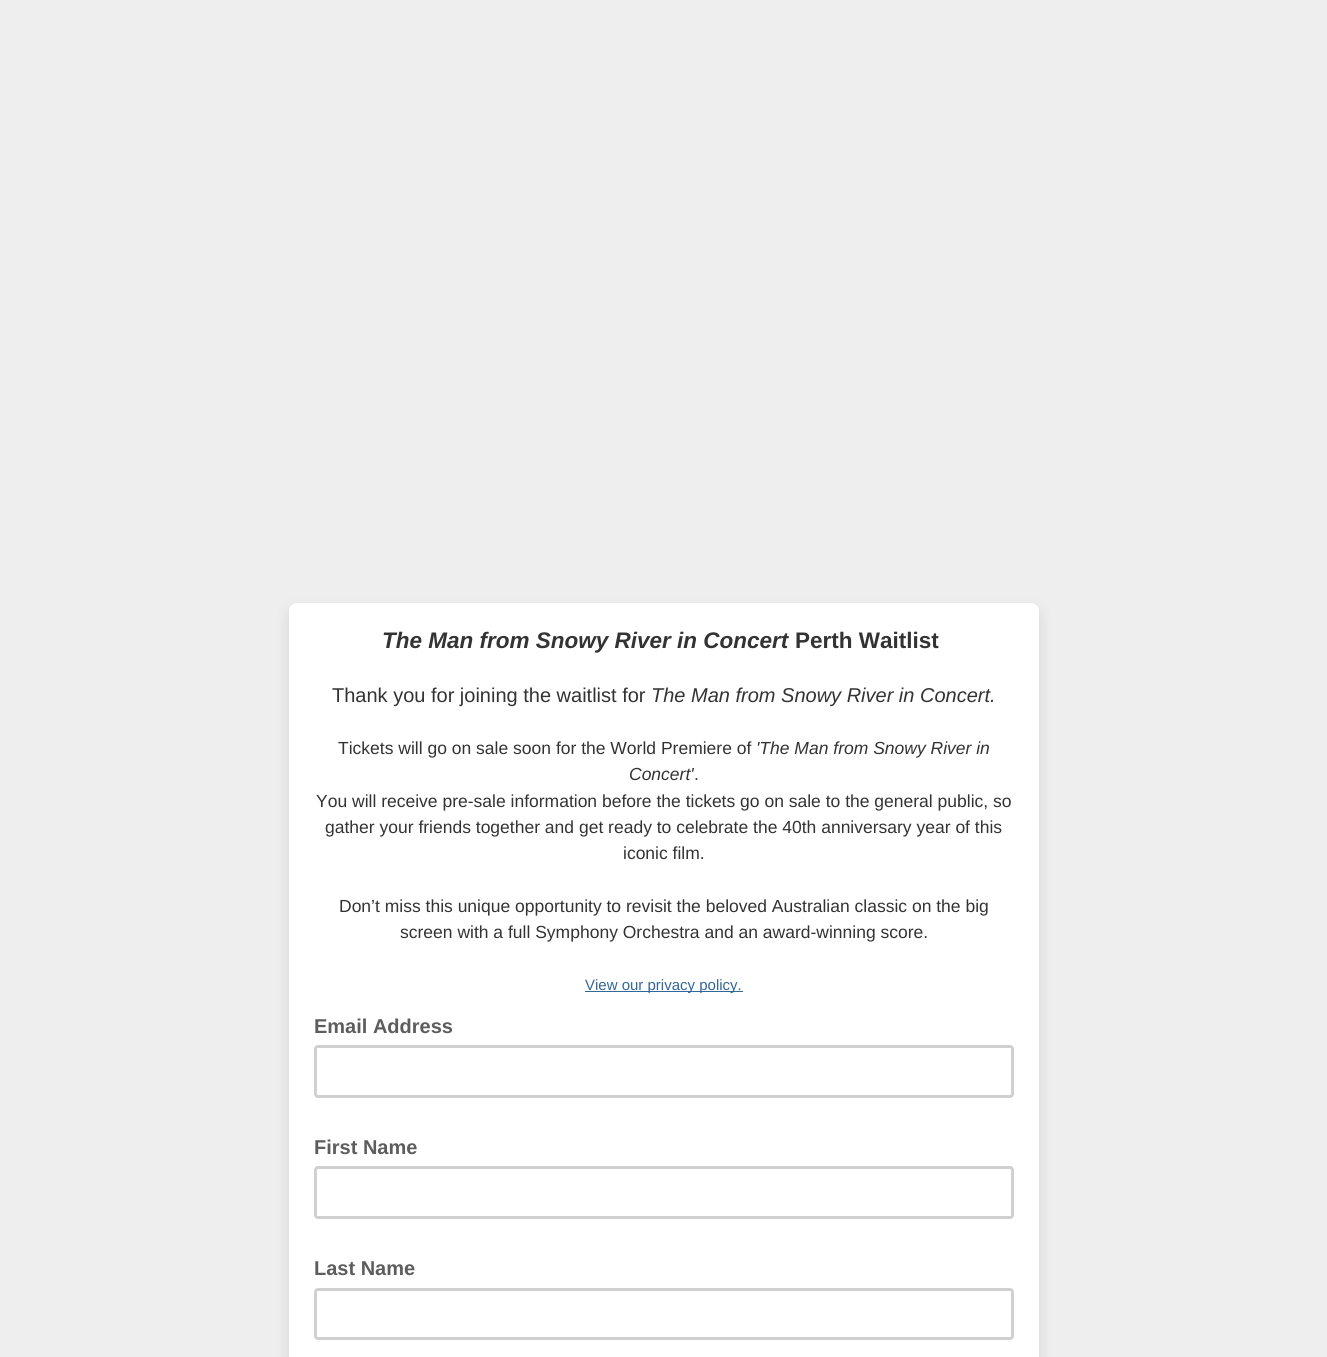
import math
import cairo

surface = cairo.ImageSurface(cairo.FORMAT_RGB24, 1327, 1357)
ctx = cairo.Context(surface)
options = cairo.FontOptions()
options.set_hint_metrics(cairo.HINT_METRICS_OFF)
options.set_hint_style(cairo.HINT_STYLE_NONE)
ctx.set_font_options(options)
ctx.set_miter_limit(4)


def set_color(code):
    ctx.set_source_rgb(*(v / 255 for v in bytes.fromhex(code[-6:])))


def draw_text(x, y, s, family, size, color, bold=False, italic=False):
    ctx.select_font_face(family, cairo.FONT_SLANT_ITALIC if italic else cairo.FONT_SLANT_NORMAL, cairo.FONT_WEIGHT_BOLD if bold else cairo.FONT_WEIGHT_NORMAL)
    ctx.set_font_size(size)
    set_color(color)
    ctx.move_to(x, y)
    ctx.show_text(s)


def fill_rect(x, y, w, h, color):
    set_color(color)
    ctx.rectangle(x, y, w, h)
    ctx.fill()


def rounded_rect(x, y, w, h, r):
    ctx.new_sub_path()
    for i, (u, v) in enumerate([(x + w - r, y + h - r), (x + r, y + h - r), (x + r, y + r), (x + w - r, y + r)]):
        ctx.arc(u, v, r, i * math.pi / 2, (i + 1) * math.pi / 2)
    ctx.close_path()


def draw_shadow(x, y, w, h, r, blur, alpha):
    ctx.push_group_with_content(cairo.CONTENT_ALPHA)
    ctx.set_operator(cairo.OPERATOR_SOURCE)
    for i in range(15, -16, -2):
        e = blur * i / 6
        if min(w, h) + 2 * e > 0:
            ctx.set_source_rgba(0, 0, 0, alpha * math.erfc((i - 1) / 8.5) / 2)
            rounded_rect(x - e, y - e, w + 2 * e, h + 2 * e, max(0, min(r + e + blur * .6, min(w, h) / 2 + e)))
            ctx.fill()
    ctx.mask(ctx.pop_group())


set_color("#eeeeee")
ctx.paint()
set_color("#0d1216")
draw_shadow(289, 610, 750, 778, 8, 7.5, 0.12)
set_color("#ffffff")
rounded_rect(289, 603, 750, 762, 8)
ctx.fill()
draw_text(382, 648, "The Man from Snowy River in Concert", "Liberation Sans", 22.5, "#333333", bold=True, italic=True)
draw_text(795, 648, "Perth Waitlist", "Liberation Sans", 22.5, "#333333", bold=True)
draw_text(332, 702, "Thank you for joining the waitlist for", "Liberation Sans", 20, "#333333")
draw_text(651, 702, "The Man from Snowy River in Concert.", "Liberation Sans", 20, "#333333", italic=True)
draw_text(338, 754, "Tickets will go on sale soon for the World Premiere of", "Liberation Sans", 17.5, "#333333")
draw_text(756, 754, "'The Man from Snowy River in", "Liberation Sans", 17.5, "#333333", italic=True)
draw_text(629, 780, "Concert'", "Liberation Sans", 17.5, "#333333", italic=True)
draw_text(694, 780, ".", "Liberation Sans", 17.5, "#333333")
draw_text(316, 807, "You will receive pre-sale information before the tickets go on sale to the general public, so", "Liberation Sans", 17.5, "#333333")
draw_text(325, 833, "gather your friends together and get ready to celebrate the 40th anniversary year of this", "Liberation Sans", 17.5, "#333333")
draw_text(623, 859, "iconic film.", "Liberation Sans", 17.5, "#333333")
draw_text(339, 912, "Don’t miss this unique opportunity to revisit the beloved Australian classic on the big", "Liberation Sans", 17.5, "#333333")
draw_text(400, 938, "screen with a full Symphony Orchestra and an award-winning score.", "Liberation Sans", 17.5, "#333333")
fill_rect(585, 991, 158, 1, "#336699")
draw_text(585, 990, "View our privacy policy.", "Liberation Sans", 15, "#336699")
draw_text(314, 1033, "Email Address", "Liberation Sans", 20, "#5d5d5d", bold=True)
rounded_rect(315.5, 1046.5, 697, 50, 2.5)
set_color("#d0d0d0")
ctx.set_line_width(3)
ctx.stroke()
draw_text(314, 1154, "First Name", "Liberation Sans", 20, "#5d5d5d", bold=True)
rounded_rect(315.5, 1167.5, 697, 50, 2.5)
set_color("#d0d0d0")
ctx.stroke()
draw_text(314, 1275, "Last Name", "Liberation Sans", 20, "#5d5d5d", bold=True)
rounded_rect(315.5, 1289.5, 697, 49, 2.5)
set_color("#d0d0d0")
ctx.stroke()
surface.write_to_png("output.png")
